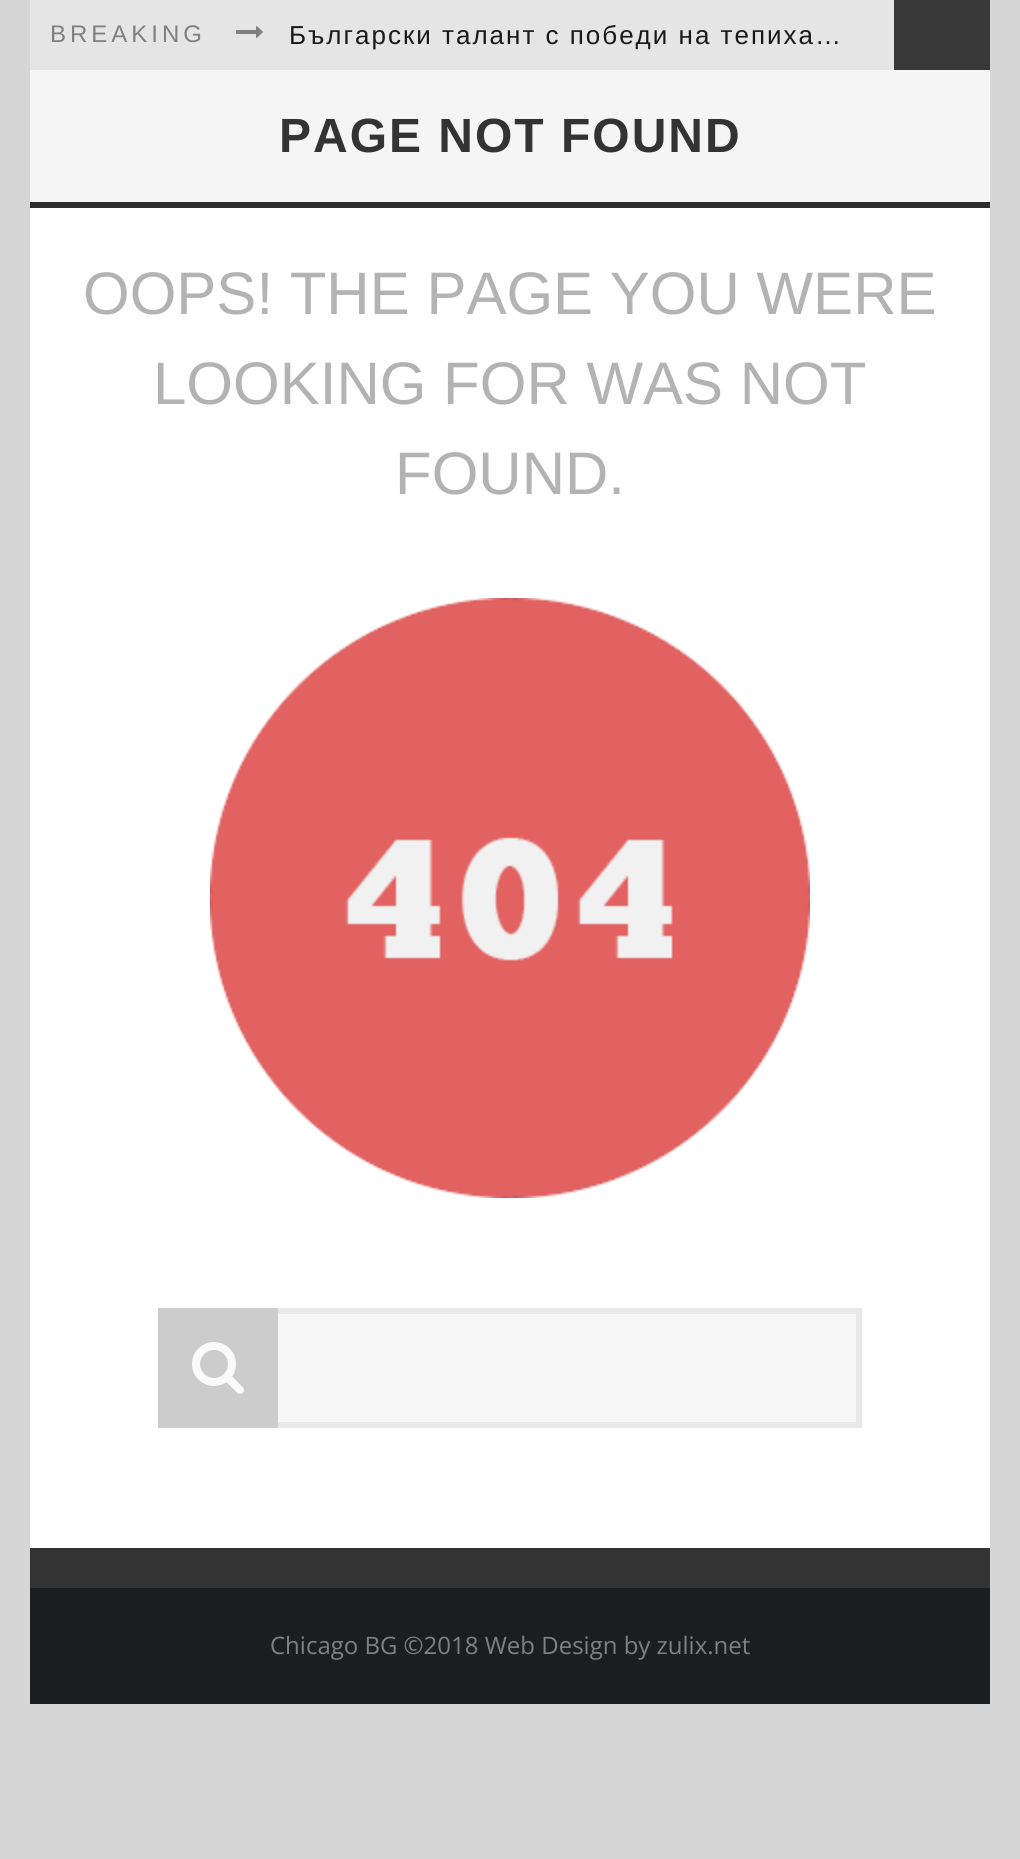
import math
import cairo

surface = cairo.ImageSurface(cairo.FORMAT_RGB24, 1020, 1859)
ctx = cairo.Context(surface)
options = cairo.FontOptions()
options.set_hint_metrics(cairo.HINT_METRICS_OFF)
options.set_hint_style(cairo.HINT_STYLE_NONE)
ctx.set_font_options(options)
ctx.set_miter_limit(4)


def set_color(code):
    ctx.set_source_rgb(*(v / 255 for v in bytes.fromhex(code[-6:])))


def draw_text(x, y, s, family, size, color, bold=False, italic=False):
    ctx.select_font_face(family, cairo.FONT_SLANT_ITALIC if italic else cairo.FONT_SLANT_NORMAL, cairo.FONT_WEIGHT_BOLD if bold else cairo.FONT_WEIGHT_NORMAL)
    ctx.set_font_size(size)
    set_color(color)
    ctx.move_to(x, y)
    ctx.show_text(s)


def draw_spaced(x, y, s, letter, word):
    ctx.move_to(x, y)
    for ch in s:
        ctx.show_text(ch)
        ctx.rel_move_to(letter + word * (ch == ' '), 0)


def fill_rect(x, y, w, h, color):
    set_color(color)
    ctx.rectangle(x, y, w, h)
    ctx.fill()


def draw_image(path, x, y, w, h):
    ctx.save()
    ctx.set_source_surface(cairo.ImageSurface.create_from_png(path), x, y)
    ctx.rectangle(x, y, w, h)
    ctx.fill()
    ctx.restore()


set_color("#d6d6d6")
ctx.paint()
fill_rect(894, 0, 96, 70, "#383838")
fill_rect(30, 0, 864, 70, "#e5e5e5")
ctx.select_font_face("Liberation Sans")
ctx.set_font_size(24)
set_color("#808080")
draw_spaced(50, 42, "BREAKING", 4, 0)
draw_image("assets/img1.png", 236, 26, 27, 12)
ctx.set_font_size(26)
set_color("#1a1818")
draw_spaced(289, 44, "Български талант с победи на тепиха…", 2, 0)
fill_rect(30, 70, 960, 132, "#f5f5f5")
fill_rect(30, 202, 960, 6, "#2e2d2d")
ctx.select_font_face("Liberation Sans", cairo.FONT_SLANT_NORMAL, cairo.FONT_WEIGHT_BOLD)
ctx.set_font_size(48)
set_color("#333333")
draw_spaced(279, 152, "PAGE NOT FOUND", 2, 0)
fill_rect(30, 208, 960, 1340, "#ffffff")
draw_text(83, 314, "OOPS! THE PAGE YOU WERE", "Liberation Sans", 60, "#b3b3b3")
draw_text(153, 404, "LOOKING FOR WAS NOT", "Liberation Sans", 60, "#b3b3b3")
draw_text(395, 494, "FOUND.", "Liberation Sans", 60, "#b3b3b3")
draw_image("assets/img2.png", 210, 598, 600, 600)
fill_rect(278, 1314, 578, 108, "#f7f7f7")
ctx.rectangle(161, 1311, 698, 114)
set_color("#e9e9e9")
ctx.set_line_width(6)
ctx.stroke()
fill_rect(158, 1308, 120, 120, "#cccccc")
draw_image("assets/img3.png", 192, 1342, 52, 52)
fill_rect(30, 1548, 960, 40, "#333333")
fill_rect(30, 1588, 960, 116, "#1c1d1e")
draw_text(270, 1654, "Chicago BG ©2018 Web Design by zulix.net", "Open Sans", 24, "#808080")
surface.write_to_png("output.png")
